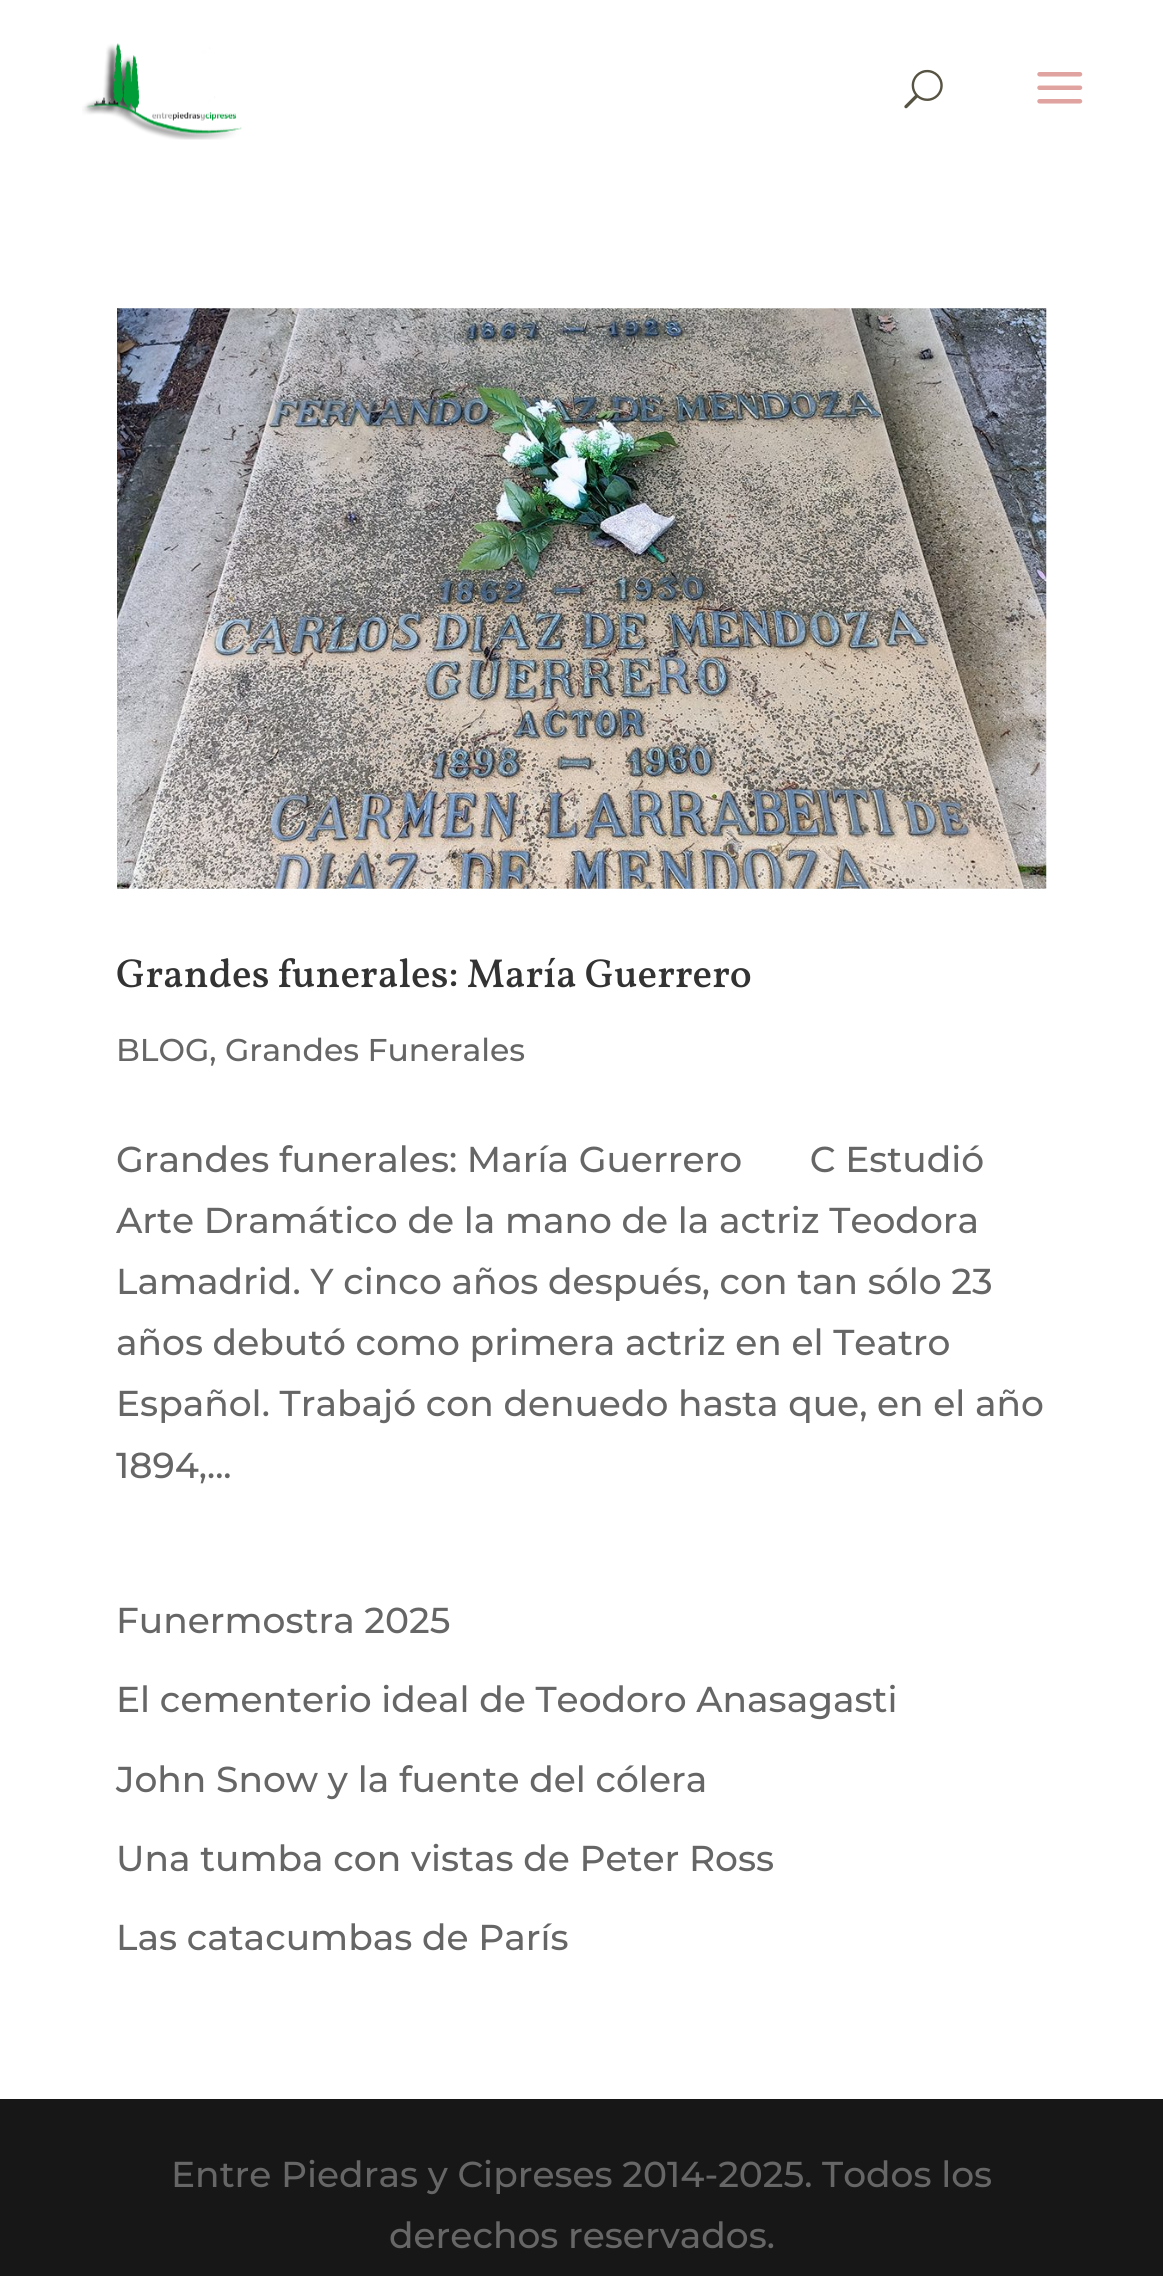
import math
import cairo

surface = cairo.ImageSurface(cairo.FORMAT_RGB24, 1163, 2276)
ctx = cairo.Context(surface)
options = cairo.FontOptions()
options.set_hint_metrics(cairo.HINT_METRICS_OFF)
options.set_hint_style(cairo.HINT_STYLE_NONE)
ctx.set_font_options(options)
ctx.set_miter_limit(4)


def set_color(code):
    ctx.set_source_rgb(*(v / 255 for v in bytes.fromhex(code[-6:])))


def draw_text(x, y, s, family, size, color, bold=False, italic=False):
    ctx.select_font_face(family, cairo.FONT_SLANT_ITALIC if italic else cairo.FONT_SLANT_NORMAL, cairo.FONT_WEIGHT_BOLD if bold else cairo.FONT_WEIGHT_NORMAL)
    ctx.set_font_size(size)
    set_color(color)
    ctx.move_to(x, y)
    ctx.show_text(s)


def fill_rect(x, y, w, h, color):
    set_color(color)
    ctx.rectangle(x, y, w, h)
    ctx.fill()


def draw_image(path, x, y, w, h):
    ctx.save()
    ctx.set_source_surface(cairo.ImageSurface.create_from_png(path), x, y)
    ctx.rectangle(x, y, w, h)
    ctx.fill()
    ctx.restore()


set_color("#ffffff")
ctx.paint()
draw_image("assets/img1.png", 82, 43, 160, 97)
draw_image("assets/img2.png", 904, 69, 39, 40)
draw_image("assets/img3.png", 1037, 72, 46, 32)
draw_image("assets/img4.png", 117, 308, 930, 581)
draw_text(116, 987, "Grandes funerales: María Guerrero", "Vollkorn Medium", 40.5, "#333333")
draw_text(116, 1061, "BLOG, Grandes Funerales", "Montserrat Medium", 31.5, "#666666")
draw_text(116, 1172, "Grandes funerales: María Guerrero       C Estudió", "Montserrat Medium", 36, "#666666")
draw_text(116, 1233, "Arte Dramático de la mano de la actriz Teodora", "Montserrat Medium", 36, "#666666")
draw_text(116, 1294, "Lamadrid. Y cinco años después, con tan sólo 23", "Montserrat Medium", 36, "#666666")
draw_text(116, 1355, "años debutó como primera actriz en el Teatro", "Montserrat Medium", 36, "#666666")
draw_text(116, 1416, "Español. Trabajó con denuedo hasta que, en el año", "Montserrat Medium", 36, "#666666")
draw_text(116, 1478, "1894,...", "Montserrat Medium", 36, "#666666")
draw_text(116, 1633, "Funermostra 2025", "Montserrat Medium", 36, "#666666")
draw_text(116, 1712, "El cementerio ideal de Teodoro Anasagasti", "Montserrat Medium", 36, "#666666")
draw_text(116, 1792, "John Snow y la fuente del cólera", "Montserrat Medium", 36, "#666666")
draw_text(116, 1871, "Una tumba con vistas de Peter Ross", "Montserrat Medium", 36, "#666666")
draw_text(116, 1950, "Las catacumbas de París", "Montserrat Medium", 36, "#666666")
fill_rect(0, 2099, 1163, 177, "#171717")
draw_text(171, 2187, "Entre Piedras y Cipreses 2014-2025. Todos los", "Montserrat Medium", 36, "#666666")
draw_text(389, 2248, "derechos reservados.", "Montserrat Medium", 36, "#666666")
surface.write_to_png("output.png")
